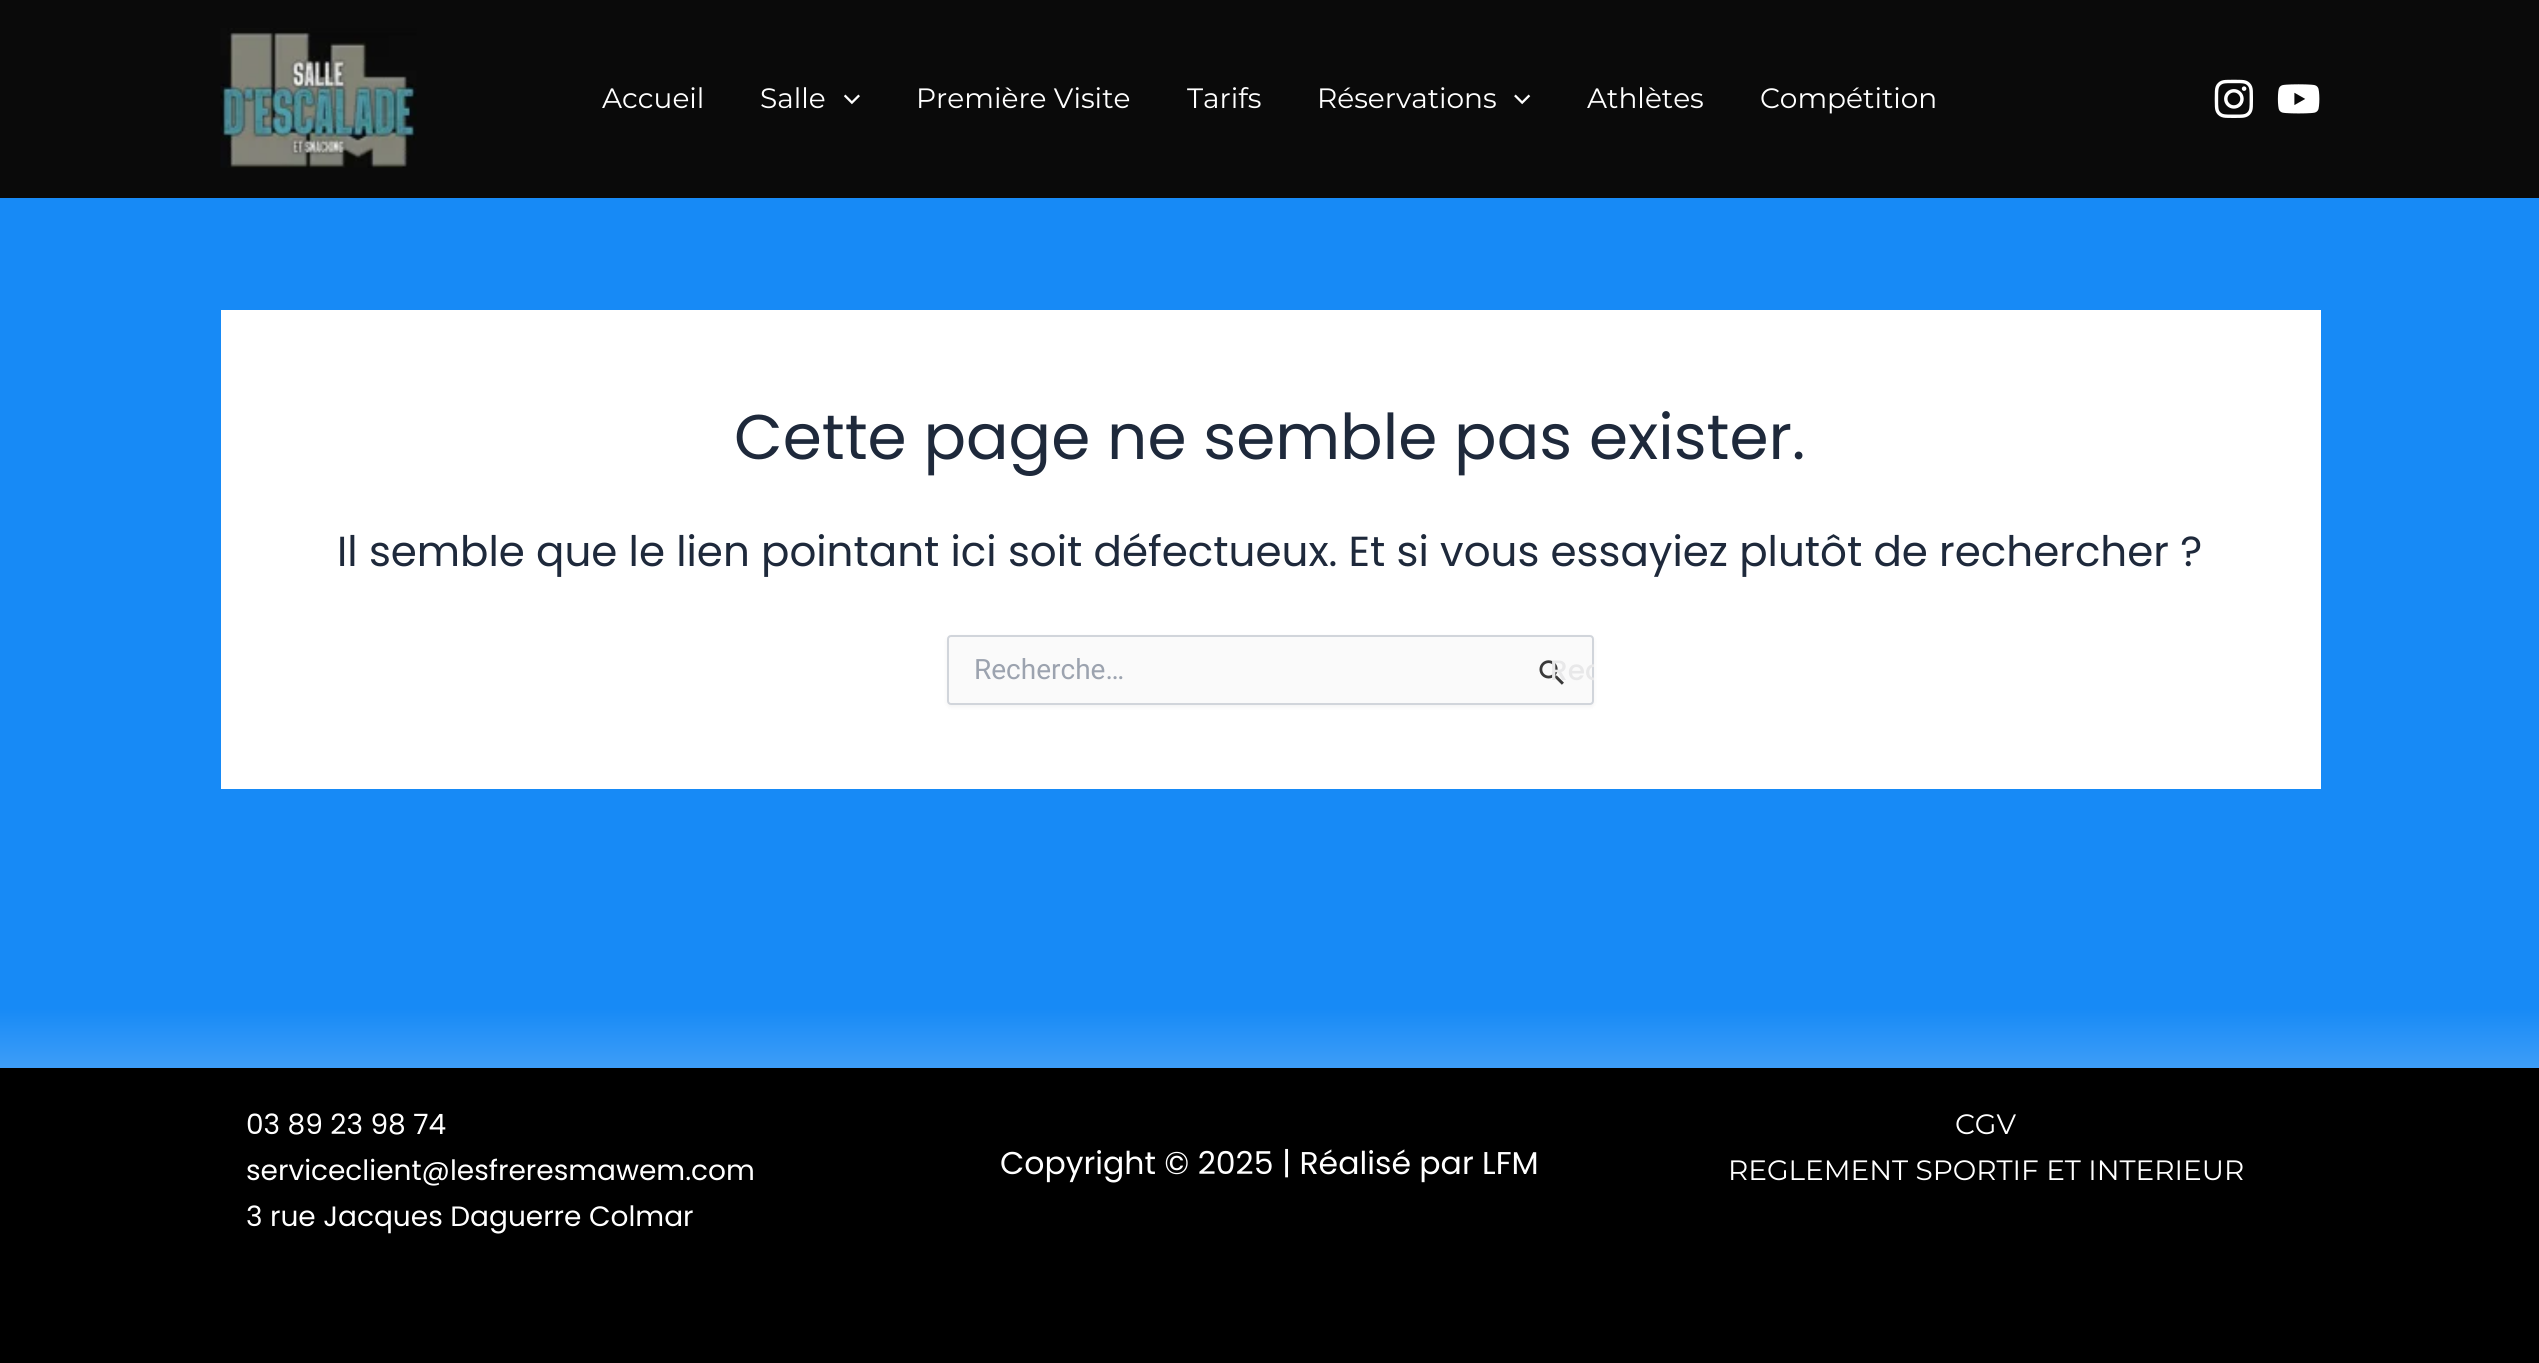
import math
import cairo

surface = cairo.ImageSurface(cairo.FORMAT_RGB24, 2539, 1363)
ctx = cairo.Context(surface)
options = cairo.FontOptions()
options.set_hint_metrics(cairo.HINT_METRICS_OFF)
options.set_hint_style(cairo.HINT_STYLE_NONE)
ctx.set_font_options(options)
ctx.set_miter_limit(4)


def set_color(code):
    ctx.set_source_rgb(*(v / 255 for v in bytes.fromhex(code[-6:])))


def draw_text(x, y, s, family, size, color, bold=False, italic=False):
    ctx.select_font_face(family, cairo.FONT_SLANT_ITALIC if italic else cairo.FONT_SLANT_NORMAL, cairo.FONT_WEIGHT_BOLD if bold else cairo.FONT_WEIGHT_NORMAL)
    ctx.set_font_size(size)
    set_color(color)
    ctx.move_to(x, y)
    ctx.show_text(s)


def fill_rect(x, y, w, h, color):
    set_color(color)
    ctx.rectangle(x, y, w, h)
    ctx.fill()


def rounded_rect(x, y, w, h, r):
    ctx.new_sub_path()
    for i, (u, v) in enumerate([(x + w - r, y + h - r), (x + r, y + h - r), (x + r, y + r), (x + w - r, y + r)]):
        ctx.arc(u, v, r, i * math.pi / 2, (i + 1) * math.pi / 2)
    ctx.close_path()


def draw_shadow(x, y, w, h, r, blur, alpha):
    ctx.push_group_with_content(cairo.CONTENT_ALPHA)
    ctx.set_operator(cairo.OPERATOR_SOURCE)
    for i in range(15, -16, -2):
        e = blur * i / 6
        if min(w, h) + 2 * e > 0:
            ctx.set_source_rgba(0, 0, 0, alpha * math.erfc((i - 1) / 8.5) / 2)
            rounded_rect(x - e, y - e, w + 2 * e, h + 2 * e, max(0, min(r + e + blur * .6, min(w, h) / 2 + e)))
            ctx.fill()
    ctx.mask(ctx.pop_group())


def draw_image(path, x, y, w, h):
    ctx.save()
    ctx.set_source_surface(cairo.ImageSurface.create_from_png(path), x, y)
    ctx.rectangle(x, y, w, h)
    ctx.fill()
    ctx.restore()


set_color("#ffffff")
ctx.paint()
gradient = cairo.LinearGradient(1270, 0, 1270, 1363)
gradient.add_color_stop_rgba(0.74, 0.09, 0.541, 0.965, 1)
gradient.add_color_stop_rgba(1, 1, 1, 1, 1)
ctx.set_source(gradient)
ctx.rectangle(0, 198, 2539, 870)
ctx.fill()
fill_rect(0, 0, 2539, 198, "#0a0a0a")
draw_image("assets/img1.png", 220, 28, 197, 140)
draw_text(602, 108, "Accueil", "Montserrat", 28, "#ffffff")
draw_text(760, 108, "Salle", "Montserrat", 28, "#ffffff")
draw_image("assets/img2.png", 844, 94, 16, 11)
draw_text(916, 108, "Première Visite", "Montserrat", 28, "#ffffff")
draw_text(1187, 108, "Tarifs", "Montserrat", 28, "#ffffff")
draw_text(1317, 108, "Réservations", "Montserrat", 28, "#ffffff")
draw_image("assets/img3.png", 1514, 94, 17, 11)
draw_text(1587, 108, "Athlètes", "Montserrat", 28, "#ffffff")
draw_text(1760, 108, "Compétition", "Montserrat", 28, "#ffffff")
draw_image("assets/img4.png", 2214, 79, 39, 39)
draw_image("assets/img5.png", 2277, 84, 43, 30)
fill_rect(221, 310, 2100, 479, "#ffffff")
draw_text(734, 459, "Cette page ne semble pas exister.", "Poppins", 63, "#1e293b")
draw_text(337, 566, "Il semble que le lien pointant ici soit défectueux. Et si vous essayiez plutôt de rechercher ?", "Poppins", 42, "#1e293b")
set_color("#000000")
draw_shadow(947, 637, 647, 70, 4, 2, 0.05)
set_color("#fafafa")
rounded_rect(948, 636, 645, 68, 3)
ctx.fill_preserve()
set_color("#d1d5db")
ctx.stroke()
draw_text(974, 679, "Recherche…", "Roboto", 28, "#9ca3af")
draw_image("assets/img6.png", 1539, 660, 25, 25)
ctx.save()
rounded_rect(1516, 635, 78, 74, 4)
ctx.clip()
draw_text(1550, 680, "Rec", "Poppins Medium", 28, "#e8e8e9")
ctx.restore()
fill_rect(0, 1068, 2539, 295, "#000000")
draw_text(246, 1134, "03 89 23 98 74", "Poppins", 28, "#ffffff")
draw_text(246, 1180, "serviceclient@lesfreresmawem.com", "Poppins", 28, "#ffffff")
draw_text(246, 1226, "3 rue Jacques Daguerre Colmar", "Poppins", 28, "#ffffff")
draw_text(1000, 1174, "Copyright © 2025 | Réalisé par LFM", "Poppins", 31.5, "#ffffff")
draw_text(1955, 1134, "CGV", "Montserrat", 28, "#ffffff")
draw_text(1728, 1180, "REGLEMENT SPORTIF ET INTERIEUR", "Montserrat", 28, "#ffffff")
surface.write_to_png("output.png")
